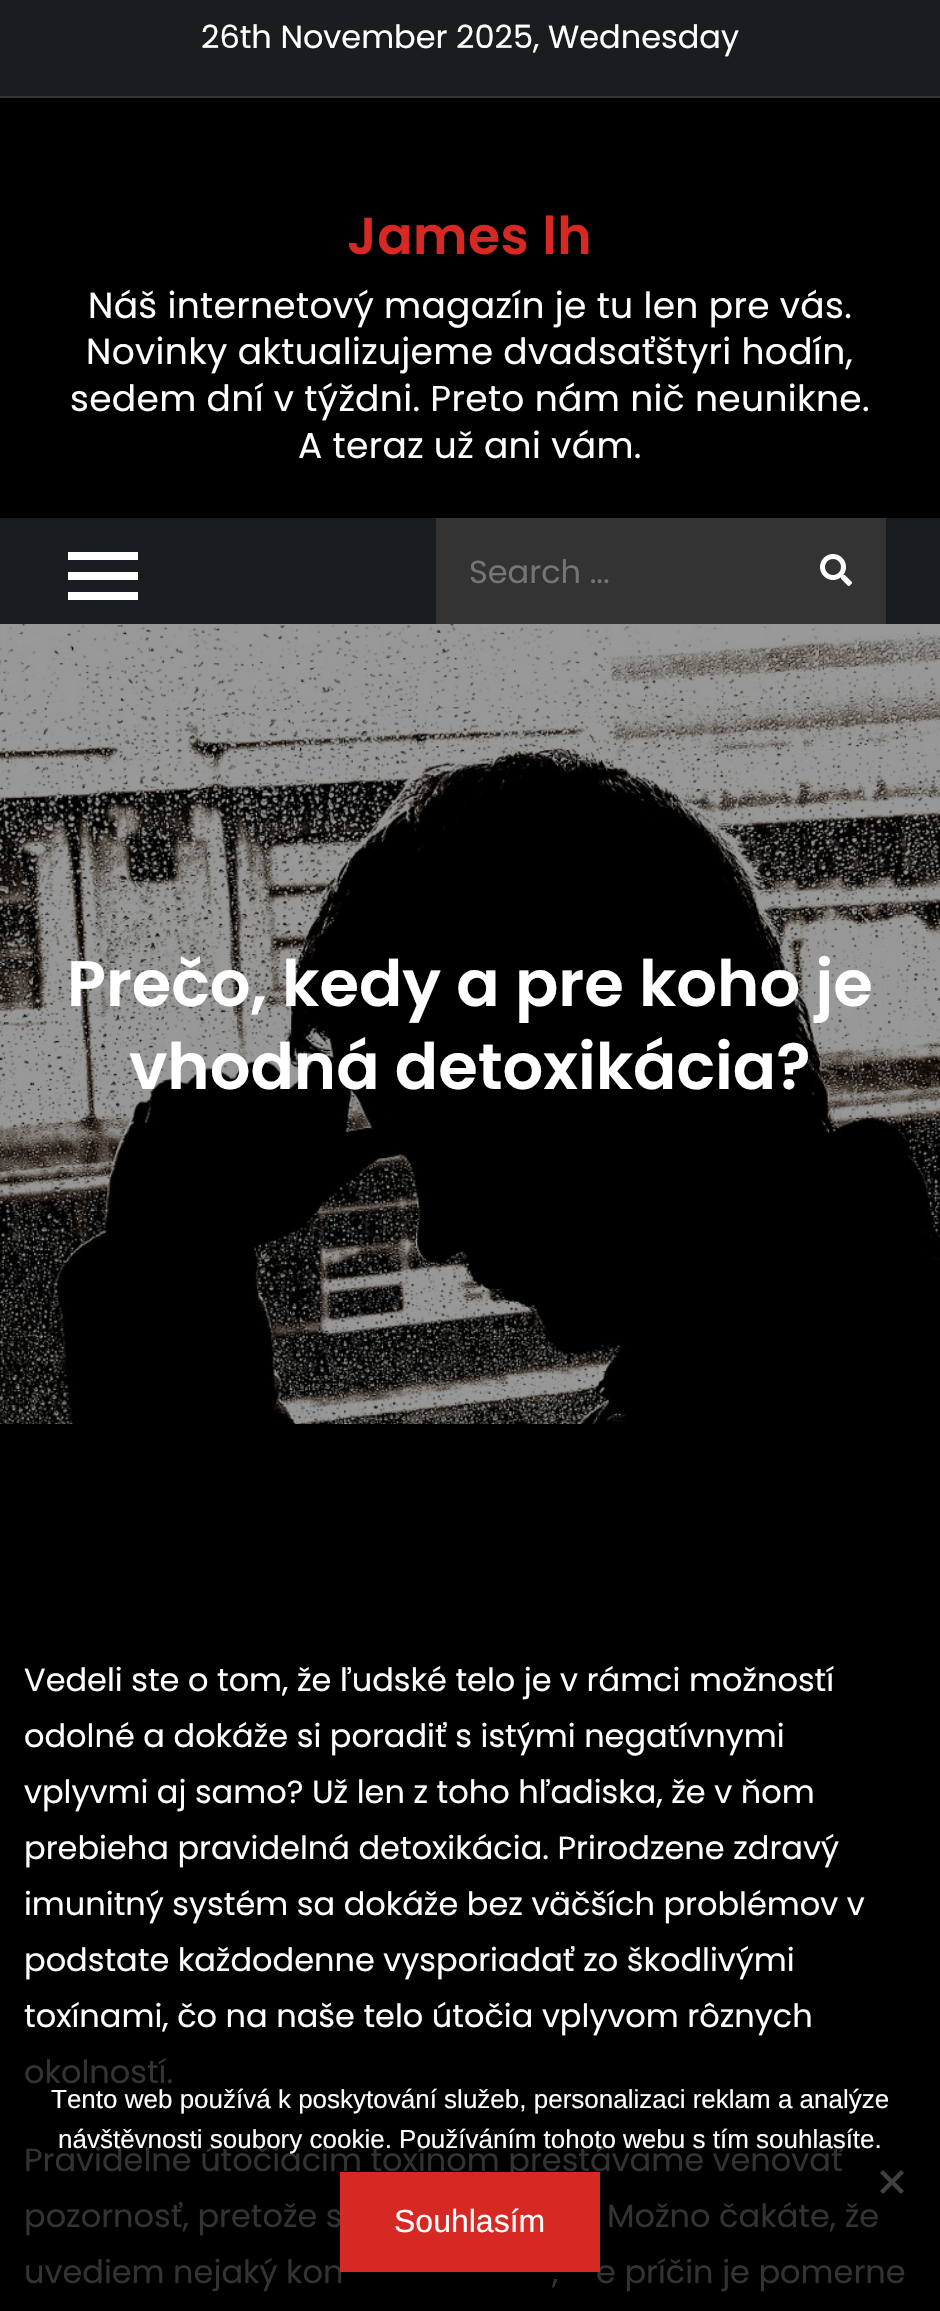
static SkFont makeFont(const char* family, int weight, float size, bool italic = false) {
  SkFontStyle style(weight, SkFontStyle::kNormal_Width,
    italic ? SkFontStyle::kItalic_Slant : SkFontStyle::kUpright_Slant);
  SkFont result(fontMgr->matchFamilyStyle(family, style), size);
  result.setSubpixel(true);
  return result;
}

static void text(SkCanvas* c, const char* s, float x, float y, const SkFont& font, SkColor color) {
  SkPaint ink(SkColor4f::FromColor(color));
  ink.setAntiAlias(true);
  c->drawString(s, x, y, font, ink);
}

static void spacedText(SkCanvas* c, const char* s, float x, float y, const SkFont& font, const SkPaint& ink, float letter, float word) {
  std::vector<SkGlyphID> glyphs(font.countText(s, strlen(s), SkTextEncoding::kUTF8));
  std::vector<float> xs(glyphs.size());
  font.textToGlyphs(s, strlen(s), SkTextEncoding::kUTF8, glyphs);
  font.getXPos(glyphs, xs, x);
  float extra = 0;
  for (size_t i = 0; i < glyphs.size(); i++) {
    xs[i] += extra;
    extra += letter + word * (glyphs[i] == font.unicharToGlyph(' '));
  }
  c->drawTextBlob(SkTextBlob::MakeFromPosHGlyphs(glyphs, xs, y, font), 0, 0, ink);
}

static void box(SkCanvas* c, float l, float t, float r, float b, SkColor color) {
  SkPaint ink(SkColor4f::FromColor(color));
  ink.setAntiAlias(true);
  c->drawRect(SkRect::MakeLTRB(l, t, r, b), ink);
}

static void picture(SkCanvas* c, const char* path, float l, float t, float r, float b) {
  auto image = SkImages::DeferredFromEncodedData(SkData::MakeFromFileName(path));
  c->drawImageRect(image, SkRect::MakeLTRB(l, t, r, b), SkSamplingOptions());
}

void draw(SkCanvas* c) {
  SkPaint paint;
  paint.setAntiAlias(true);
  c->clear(0xff000000);
  box(c, 0, 0, 940, 96, 0xff1a1d20);
  box(c, 0, 96, 940, 98, 0xff313436);
  SkFont face1 = makeFont("Poppins", 400, 32);
  text(c, "26th November 2025, Wednesday", 201, 48, face1, 0xffffffff);
  SkFont face2 = makeFont("Poppins", 600, 52);
  paint.setColor(0xffd72924);
  spacedText(c, "James lh", 347, 254, face2, paint, 0.5f, 0);
  SkFont face3 = makeFont("Poppins", 400, 36);
  paint.setColor(0xffffffff);
  spacedText(c, "Náš internetový magazín je tu len pre vás.", 88, 318, face3, paint, 0.35f, 0);
  spacedText(c, "Novinky aktualizujeme dvadsaťštyri hodín,", 86, 364, face3, paint, 0.35f, 0);
  spacedText(c, "sedem dní v týždni. Preto nám nič neunikne.", 70, 411, face3, paint, 0.35f, 0);
  spacedText(c, "A teraz už ani vám.", 298, 458, face3, paint, 0.35f, 0);
  box(c, 0, 518, 940, 624, 0xff1a1d20);
  box(c, 68, 572, 138, 580, 0xffffffff);
  box(c, 68, 552, 138, 560, 0xffffffff);
  box(c, 68, 592, 138, 600, 0xffffffff);
  box(c, 436, 518, 886, 624, 0xff333333);
  text(c, "Search ...", 469, 583, face1, 0xff757575);
  picture(c, "img_01.png", 820, 554, 852, 586);
  picture(c, "img_02.png", 0, 624, 940, 1424);
  SkFont face4 = makeFont("Poppins", 600, 64);
  text(c, "Prečo, kedy a pre koho je", 67, 1006, face4, 0xffffffff);
  text(c, "vhodná detoxikácia?", 129, 1089, face4, 0xffffffff);
  text(c, "Vedeli ste o tom, že ľudské telo je v rámci možností", 24, 1691, face1, 0xffffffff);
  text(c, "odolné a dokáže si poradiť s istými negatívnymi", 24, 1747, face1, 0xffffffff);
  text(c, "vplyvmi aj samo? Už len z toho hľadiska, že v ňom", 24, 1803, face1, 0xffffffff);
  text(c, "prebieha pravidelná detoxikácia. Prirodzene zdravý", 24, 1859, face1, 0xffffffff);
  text(c, "imunitný systém sa dokáže bez väčších problémov v", 24, 1915, face1, 0xffffffff);
  text(c, "podstate každodenne vysporiadať zo škodlivými", 24, 1971, face1, 0xffffffff);
  text(c, "toxínami, čo na naše telo útočia vplyvom rôznych", 24, 2027, face1, 0xffffffff);
  text(c, "okolností.", 24, 2083, face1, 0xff333333);
  text(c, "Pravidelne útočiacim toxínom prestávame venovať", 24, 2171, face1, 0xff333333);
  text(c, "pozornosť, pretože s", 24, 2227, face1, 0xff333333);
  text(c, "Možno čakáte, že", 607, 2227, face1, 0xff333333);
  text(c, "uvediem nejaký kon", 24, 2283, face1, 0xff333333);
  text(c, ",", 552, 2283, face1, 0xff333333);
  text(c, "e príčin je pomerne", 596, 2283, face1, 0xff333333);
  SkFont face5 = makeFont("Liberation Sans", 400, 26);
  text(c, "Tento web používá k poskytování služeb, personalizaci reklam a analýze", 51, 2108, face5, 0xffffffff);
  text(c, "návštěvnosti soubory cookie. Používáním tohoto webu s tím souhlasíte.", 58, 2148, face5, 0xffffffff);
  paint.setColor(0xff404040);
  c->drawPath(SkPathBuilder().moveTo(901, 2170).lineTo(904, 2173).lineTo(883, 2194).lineTo(880, 2191).close().detach(), paint);
  c->drawPath(SkPathBuilder().moveTo(880, 2173).lineTo(883, 2170).lineTo(904, 2191).lineTo(901, 2194).close().detach(), paint);
  box(c, 340, 2172, 600, 2272, 0xffd72924);
  SkFont face6 = makeFont("Liberation Sans", 400, 32);
  text(c, "Souhlasím", 394, 2232, face6, 0xffffffff);
}
